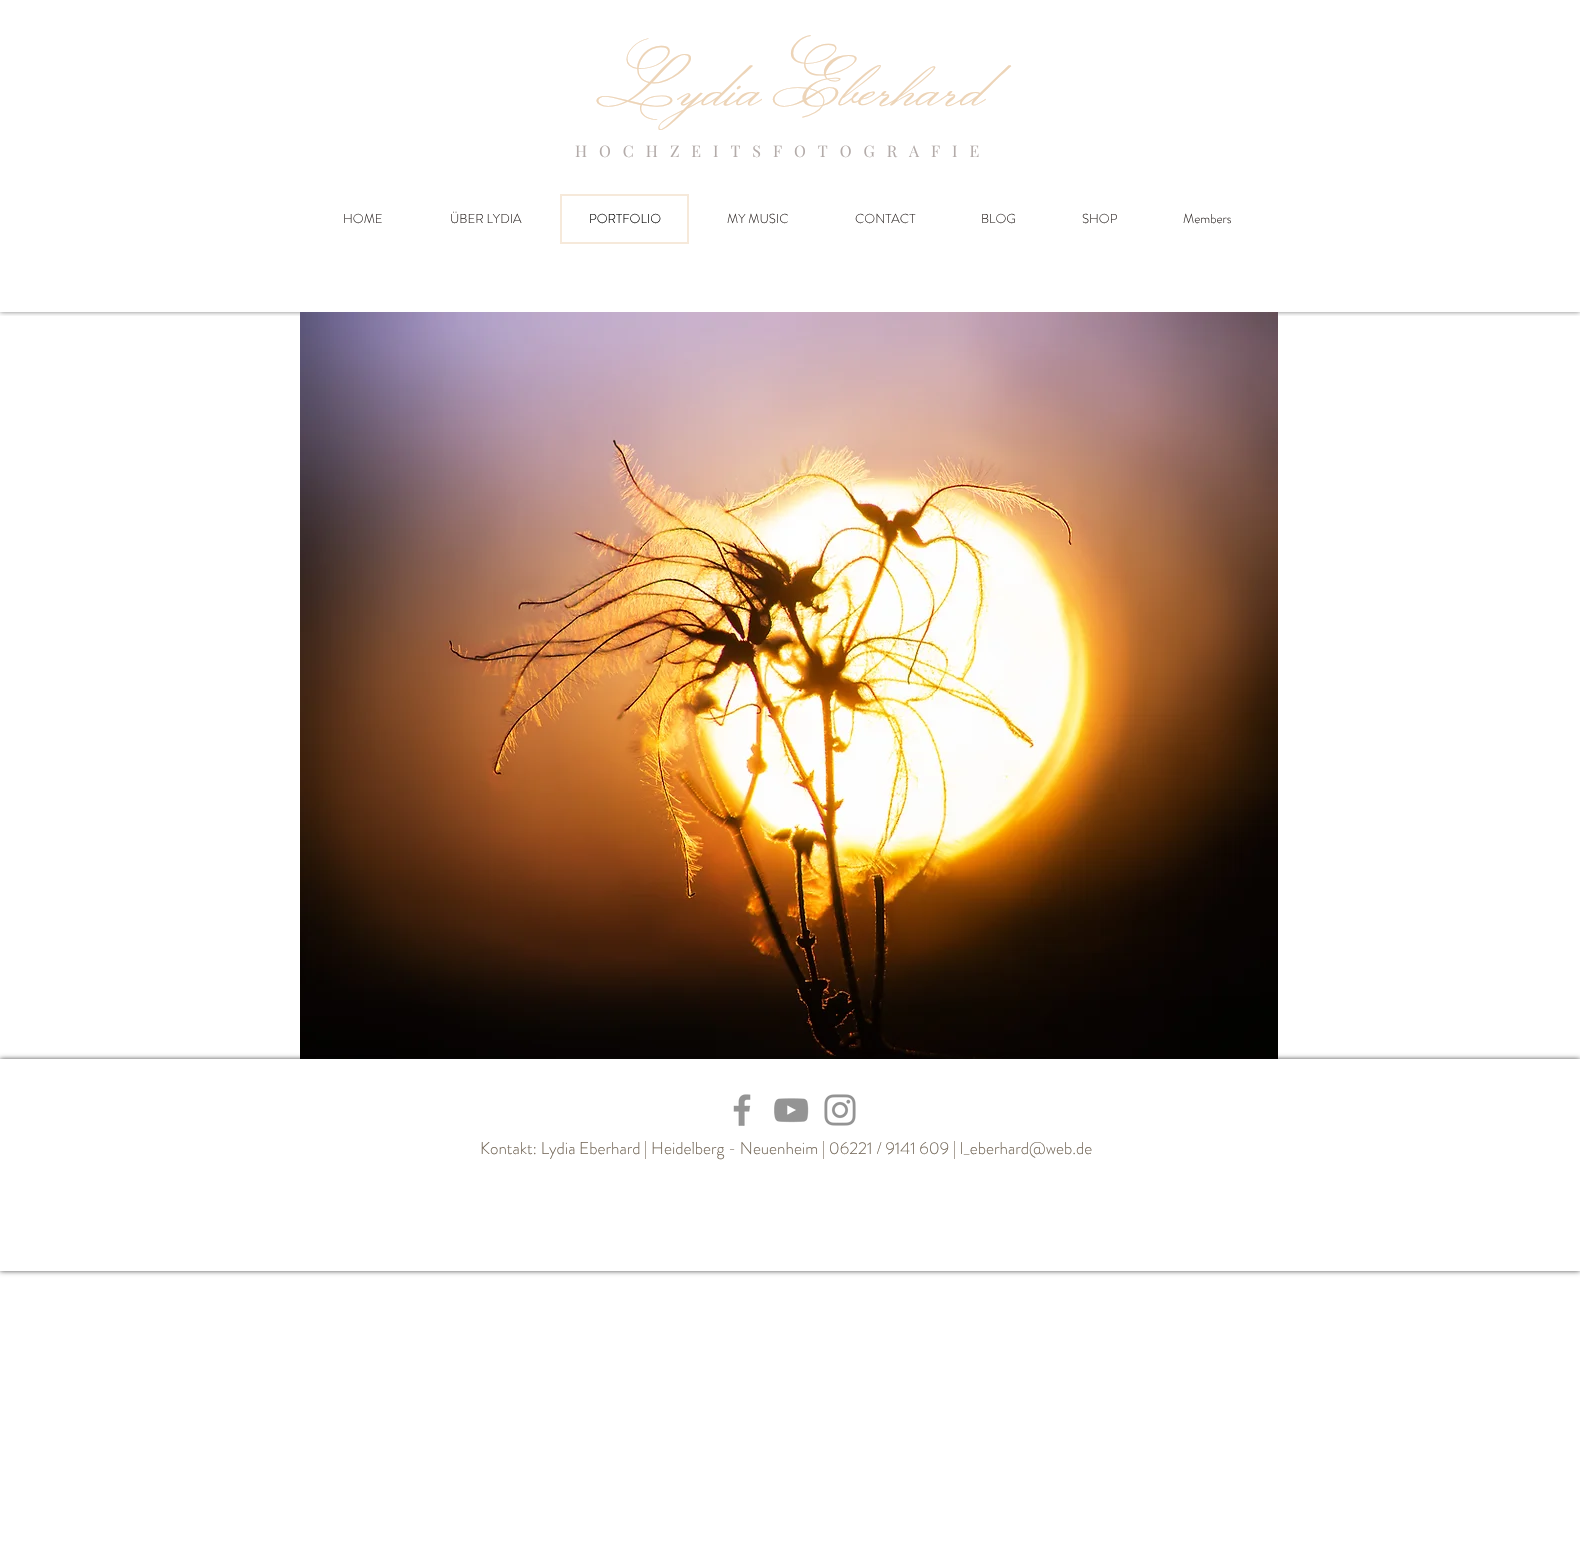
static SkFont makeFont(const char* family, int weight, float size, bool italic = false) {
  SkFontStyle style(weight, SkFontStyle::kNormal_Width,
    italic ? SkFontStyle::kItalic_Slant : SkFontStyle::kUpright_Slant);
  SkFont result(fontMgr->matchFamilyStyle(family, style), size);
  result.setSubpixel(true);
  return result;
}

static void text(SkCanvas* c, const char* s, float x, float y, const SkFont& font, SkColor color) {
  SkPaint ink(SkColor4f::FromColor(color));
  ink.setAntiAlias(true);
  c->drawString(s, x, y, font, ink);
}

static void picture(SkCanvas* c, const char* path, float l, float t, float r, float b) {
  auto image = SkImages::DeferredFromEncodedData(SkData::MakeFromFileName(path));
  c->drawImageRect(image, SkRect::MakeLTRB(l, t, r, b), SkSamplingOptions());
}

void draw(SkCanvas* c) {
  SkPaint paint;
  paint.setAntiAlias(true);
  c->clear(0xffffffff);
  c->save();
  c->clipRect(SkRect::MakeLTRB(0, 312, 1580, 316));
  paint.setColor(0x80000000);
  paint.setMaskFilter(SkMaskFilter::MakeBlur(kNormal_SkBlurStyle, 2.5f));
  c->drawRect(SkRect::MakeLTRB(0, 0, 1580, 312), paint);
  paint.setMaskFilter(nullptr);
  c->restore();
  SkFont face1 = makeFont("Monsieur La Doulaise", 400, 66);
  text(c, "Lydia Eberhard", 596, 104, face1, 0xffedd4b7);
  SkFont face2 = makeFont("Playfair Display", 400, 16);
  text(c, "H   O   C   H   Z   E   I   T   S   F   O   T   O   G   R   A   F   I   E", 575, 157, face2, 0xffb3aba9);
  SkFont face3 = makeFont("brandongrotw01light", 300, 13);
  text(c, "HOME", 343, 223, face3, 0xff332d2b);
  text(c, "ÜBER LYDIA", 450, 223, face3, 0xff332d2b);
  paint.setStyle(SkPaint::kStroke_Style);
  paint.setStrokeWidth(2);
  paint.setColor(0xfff6e9da);
  c->drawRect(SkRect::MakeLTRB(561, 195, 688, 243), paint);
  text(c, "PORTFOLIO", 589, 223, face3, 0xff000000);
  text(c, "MY MUSIC", 727, 223, face3, 0xff332d2b);
  text(c, "CONTACT", 855, 223, face3, 0xff332d2b);
  text(c, "BLOG", 981, 223, face3, 0xff332d2b);
  text(c, "SHOP", 1082, 223, face3, 0xff332d2b);
  text(c, "Members", 1183, 223, face3, 0xff332d2b);
  picture(c, "img_01.png", 300, 312, 1278, 1059);
  c->save();
  c->clipPath(SkPathBuilder(SkPathFillType::kEvenOdd).moveTo(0, 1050).lineTo(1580, 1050).lineTo(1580, 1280).lineTo(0, 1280).close().moveTo(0, 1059).lineTo(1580, 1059).lineTo(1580, 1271).lineTo(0, 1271).close().detach(), true);
  paint.setStyle(SkPaint::kFill_Style);
  paint.setColor(0xb3000000);
  paint.setMaskFilter(SkMaskFilter::MakeBlur(kNormal_SkBlurStyle, 2.5f));
  c->drawRect(SkRect::MakeLTRB(0, 1059, 1580, 1271), paint);
  paint.setMaskFilter(nullptr);
  c->restore();
  picture(c, "img_02.png", 733, 1094, 751, 1126);
  picture(c, "img_03.png", 774, 1098, 809, 1123);
  picture(c, "img_04.png", 824, 1094, 856, 1126);
  SkFont face4 = makeFont("brandongrotw01light", 300, 17);
  text(c, "Kontakt: Lydia Eberhard | Heidelberg - Neuenheim | 06221 / 9141 609 | l_eberhard@web.de", 480, 1154, face4, 0xff766a5b);
}
